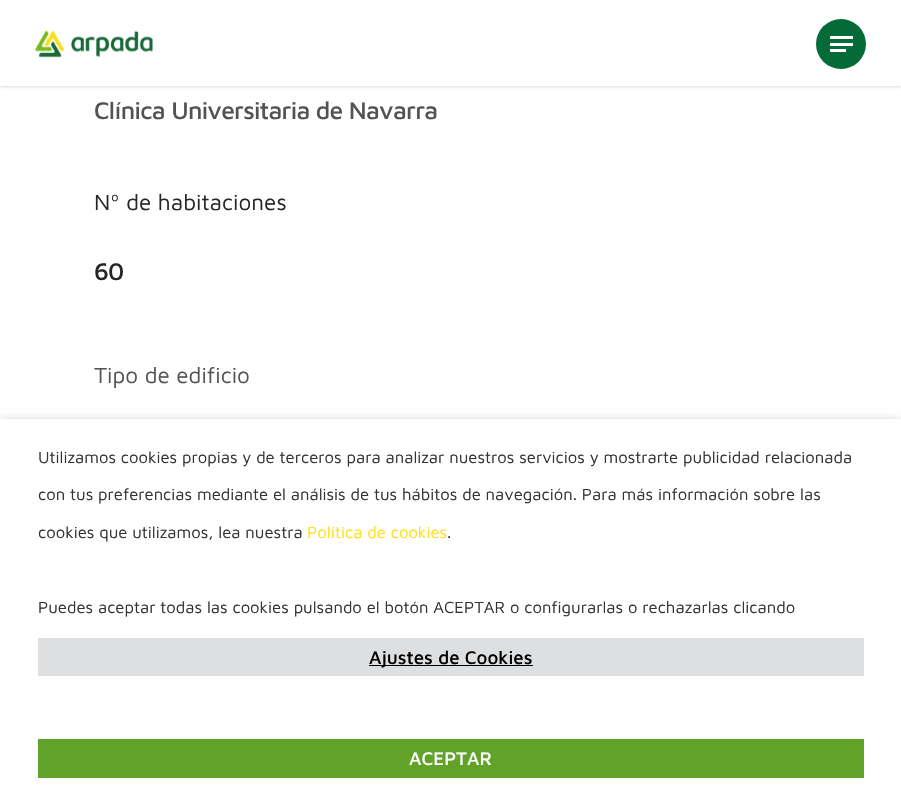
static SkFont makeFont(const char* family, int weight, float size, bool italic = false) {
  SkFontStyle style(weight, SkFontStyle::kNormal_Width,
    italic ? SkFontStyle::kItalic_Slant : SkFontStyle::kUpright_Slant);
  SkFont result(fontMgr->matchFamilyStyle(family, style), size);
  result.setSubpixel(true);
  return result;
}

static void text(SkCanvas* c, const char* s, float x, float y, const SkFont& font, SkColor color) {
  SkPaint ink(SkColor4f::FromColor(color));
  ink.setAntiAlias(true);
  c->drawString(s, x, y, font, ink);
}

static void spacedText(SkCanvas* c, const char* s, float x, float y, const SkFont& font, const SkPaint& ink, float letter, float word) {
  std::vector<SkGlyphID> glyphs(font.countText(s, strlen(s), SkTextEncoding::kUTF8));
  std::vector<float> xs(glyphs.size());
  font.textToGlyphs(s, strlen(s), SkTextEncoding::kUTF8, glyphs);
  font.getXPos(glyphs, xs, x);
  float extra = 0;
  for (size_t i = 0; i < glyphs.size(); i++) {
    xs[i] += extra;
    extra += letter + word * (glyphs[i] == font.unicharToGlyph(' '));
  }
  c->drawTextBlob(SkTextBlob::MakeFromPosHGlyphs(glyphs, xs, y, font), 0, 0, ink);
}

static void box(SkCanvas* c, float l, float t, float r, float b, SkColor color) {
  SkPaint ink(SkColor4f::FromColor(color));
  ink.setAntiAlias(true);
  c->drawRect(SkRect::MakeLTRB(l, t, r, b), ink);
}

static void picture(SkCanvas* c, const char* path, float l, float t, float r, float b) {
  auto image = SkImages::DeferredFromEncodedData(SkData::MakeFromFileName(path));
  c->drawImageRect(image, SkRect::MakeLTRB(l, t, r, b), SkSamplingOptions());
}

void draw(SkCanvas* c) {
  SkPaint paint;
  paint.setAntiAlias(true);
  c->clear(0xffffffff);
  paint.setColor(0x38000000);
  paint.setMaskFilter(SkMaskFilter::MakeBlur(kNormal_SkBlurStyle, 2));
  c->drawRect(SkRect::MakeLTRB(0, -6, 901, 86), paint);
  paint.setMaskFilter(nullptr);
  box(c, 0, 0, 901, 86, 0xffffffff);
  picture(c, "img_01.png", 35, 30, 153, 58);
  paint.setColor(0xff046a38);
  c->drawCircle(841, 44, 25, paint);
  box(c, 830, 36, 853, 39, 0xffffffff);
  box(c, 830, 49, 846, 52, 0xffffffff);
  box(c, 830, 43, 853, 46, 0xffffffff);
  SkFont face1 = makeFont("Maven Pro", 500, 24.75f);
  paint.setColor(0xff535353);
  spacedText(c, "Clínica Universitaria de Navarra", 94, 119, face1, paint, -0.75f, 0);
  SkFont face2 = makeFont("Maven Pro", 400, 22.5f);
  text(c, "Nº de habitaciones", 94, 210, face2, 0xff262626);
  paint.setColor(0xff262626);
  spacedText(c, "60", 94, 280, face1, paint, -0.75f, 0);
  text(c, "Tipo de edificio", 94, 383, face2, 0xff535353);
  paint.setColor(0x80000000);
  paint.setMaskFilter(SkMaskFilter::MakeBlur(kNormal_SkBlurStyle, 6));
  c->drawRect(SkRect::MakeLTRB(0, 425, 901, 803), paint);
  paint.setMaskFilter(nullptr);
  box(c, 0, 419, 901, 796, 0xffffffff);
  SkFont face3 = makeFont("Maven Pro", 400, 16.65f);
  text(c, "Utilizamos cookies propias y de terceros para analizar nuestros servicios y mostrarte publicidad relacionada", 38, 463, face3, 0xff333333);
  text(c, "con tus preferencias mediante el análisis de tus hábitos de navegación. Para más información sobre las", 38, 500, face3, 0xff333333);
  text(c, "cookies que utilizamos, lea nuestra", 38, 538, face3, 0xff333333);
  text(c, "Política de cookies", 307, 538, face3, 0xfffbe122);
  text(c, ".", 447, 538, face3, 0xff333333);
  text(c, "Puedes aceptar todas las cookies pulsando el botón ACEPTAR o configurarlas o rechazarlas clicando", 38, 613, face3, 0xff333333);
  box(c, 38, 638, 864, 676, 0xffdedfe0);
  box(c, 369, 665, 533, 666, 0xff000000);
  SkFont face4 = makeFont("Maven Pro", 500, 18.75f);
  text(c, "Ajustes de Cookies", 369, 664, face4, 0xff000000);
  box(c, 38, 739, 864, 778, 0xff61a229);
  text(c, "ACEPTAR", 409, 765, face4, 0xffffffff);
}
